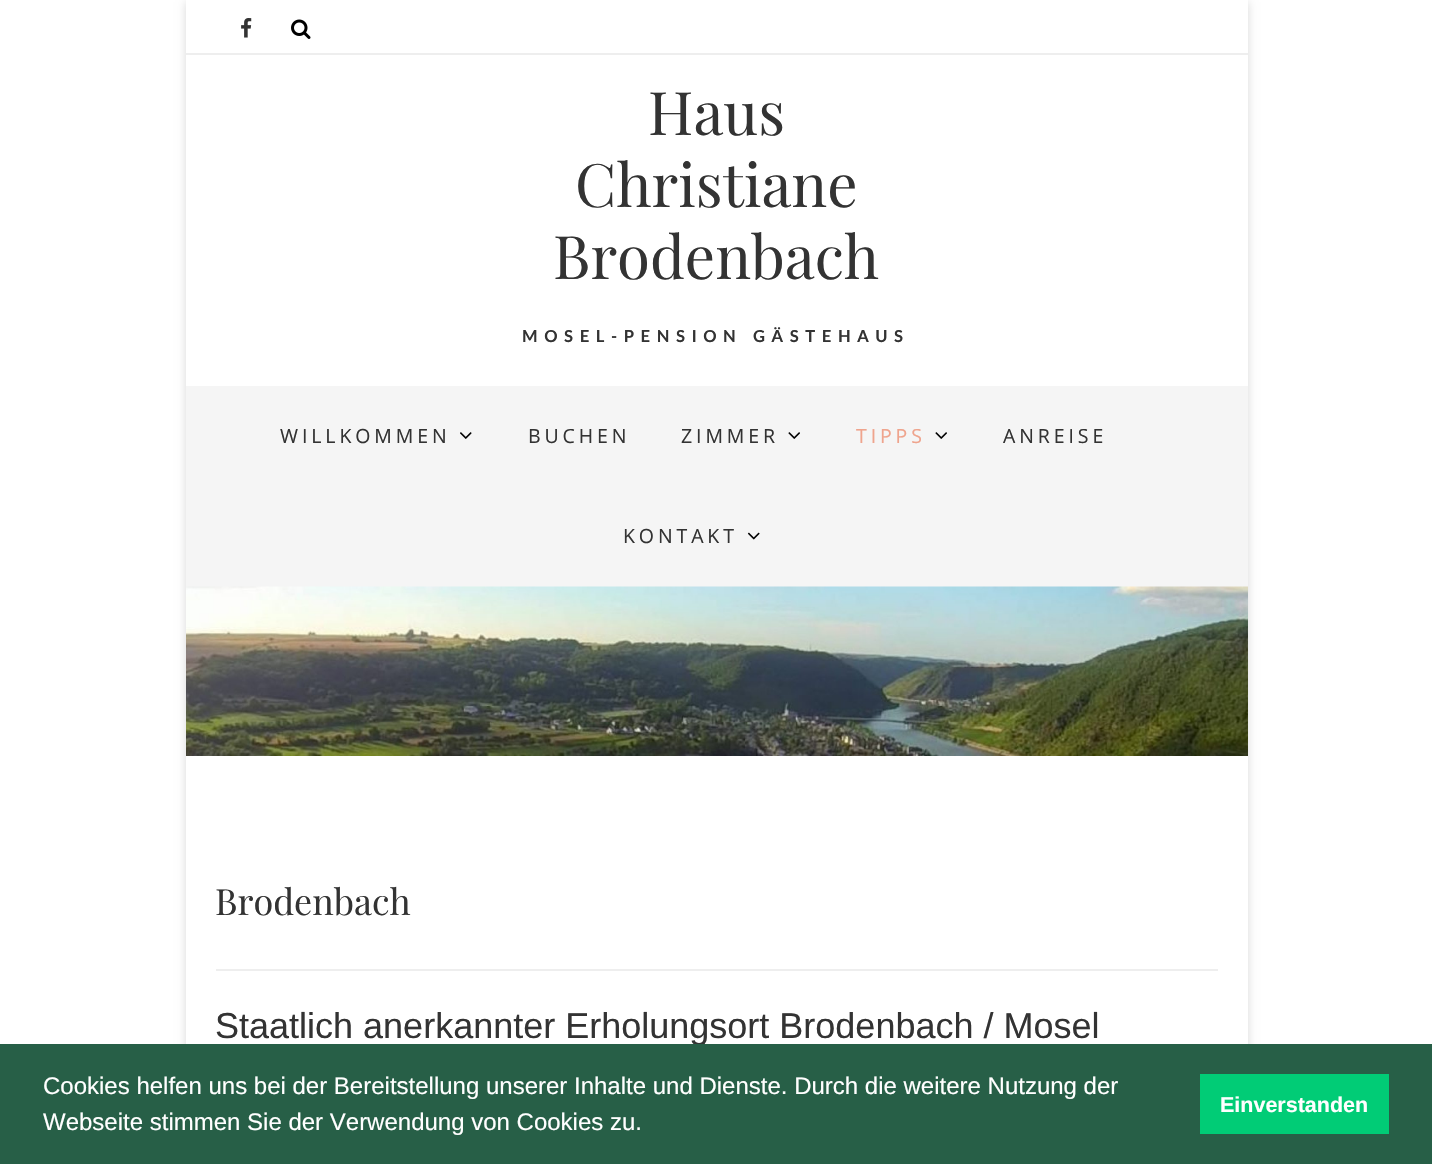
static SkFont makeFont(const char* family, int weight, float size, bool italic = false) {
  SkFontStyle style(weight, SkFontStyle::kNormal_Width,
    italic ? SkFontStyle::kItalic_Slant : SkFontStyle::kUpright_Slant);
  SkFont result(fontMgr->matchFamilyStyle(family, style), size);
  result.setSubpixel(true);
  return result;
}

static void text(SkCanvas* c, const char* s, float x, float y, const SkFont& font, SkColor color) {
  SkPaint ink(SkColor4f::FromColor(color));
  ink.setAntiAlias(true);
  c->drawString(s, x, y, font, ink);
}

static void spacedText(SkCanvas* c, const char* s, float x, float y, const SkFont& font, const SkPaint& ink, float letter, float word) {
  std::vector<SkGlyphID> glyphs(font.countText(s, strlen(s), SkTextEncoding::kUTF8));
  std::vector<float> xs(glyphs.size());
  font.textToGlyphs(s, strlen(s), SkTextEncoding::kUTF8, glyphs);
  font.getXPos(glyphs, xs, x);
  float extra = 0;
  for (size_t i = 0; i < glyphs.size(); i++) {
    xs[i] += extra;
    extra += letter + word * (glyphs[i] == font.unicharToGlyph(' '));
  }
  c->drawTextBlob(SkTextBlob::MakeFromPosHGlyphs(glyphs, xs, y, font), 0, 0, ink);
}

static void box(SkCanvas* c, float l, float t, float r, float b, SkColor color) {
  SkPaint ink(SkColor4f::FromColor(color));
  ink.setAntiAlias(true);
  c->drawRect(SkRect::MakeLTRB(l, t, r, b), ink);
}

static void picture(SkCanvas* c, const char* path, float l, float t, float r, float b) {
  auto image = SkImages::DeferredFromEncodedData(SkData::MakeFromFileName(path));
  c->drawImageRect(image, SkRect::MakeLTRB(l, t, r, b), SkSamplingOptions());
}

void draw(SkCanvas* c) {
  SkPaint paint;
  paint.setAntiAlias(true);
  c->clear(0xffffffff);
  c->save();
  c->clipPath(SkPathBuilder(SkPathFillType::kEvenOdd).moveTo(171, 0).lineTo(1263, 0).lineTo(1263, 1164).lineTo(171, 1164).close().moveTo(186, 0).lineTo(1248, 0).lineTo(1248, 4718).lineTo(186, 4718).close().detach(), true);
  paint.setColor(0x26000000);
  paint.setMaskFilter(SkMaskFilter::MakeBlur(kNormal_SkBlurStyle, 4.5f));
  c->drawRect(SkRect::MakeLTRB(186, 2, 1248, 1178), paint);
  paint.setMaskFilter(nullptr);
  c->restore();
  box(c, 186, 53, 1248, 55, 0xffeeeeee);
  picture(c, "img_01.png", 241, 18, 252, 38);
  picture(c, "img_02.png", 291, 19, 311, 39);
  SkFont face1 = makeFont("Playfair Display", 400, 60);
  text(c, "Haus", 648, 135, face1, 0xff333333);
  text(c, "Christiane", 575, 207, face1, 0xff333333);
  text(c, "Brodenbach", 553, 279, face1, 0xff333333);
  SkFont face2 = makeFont("Lato", 700, 16.5f);
  paint.setColor(0xff333333);
  spacedText(c, "MOSEL-PENSION GÄSTEHAUS", 522, 342, face2, paint, 6.6f, 0);
  box(c, 186, 386, 1248, 587, 0xfff5f5f5);
  SkFont face3 = makeFont("Open Sans", 400, 19.5f);
  spacedText(c, "WILLKOMMEN", 280, 443, face3, paint, 3.9f, 0);
  picture(c, "img_03.png", 460, 432, 472, 439);
  spacedText(c, "BUCHEN", 528, 443, face3, paint, 3.9f, 0);
  spacedText(c, "ZIMMER", 681, 443, face3, paint, 3.9f, 0);
  picture(c, "img_04.png", 788, 432, 800, 439);
  paint.setColor(0xffefa48d);
  spacedText(c, "TIPPS", 856, 443, face3, paint, 3.9f, 0);
  picture(c, "img_04.png", 935, 432, 947, 439);
  paint.setColor(0xff333333);
  spacedText(c, "ANREISE", 1003, 443, face3, paint, 3.9f, 0);
  spacedText(c, "KONTAKT", 623, 543, face3, paint, 3.9f, 0);
  picture(c, "img_05.png", 747, 532, 760, 540);
  picture(c, "img_06.png", 186, 586, 1248, 756);
  box(c, 216, 969, 1218, 971, 0xffeeeeee);
  SkFont face4 = makeFont("Playfair Display", 400, 36);
  text(c, "Brodenbach", 215, 915, face4, 0xff333333);
  SkFont face5 = makeFont("Liberation Sans", 400, 36);
  text(c, "Staatlich anerkannter Erholungsort Brodenbach / Mosel", 215, 1038, face5, 0xff333333);
  box(c, 0, 1044, 1432, 1164, 0xff275f47);
  SkFont face6 = makeFont("Liberation Sans", 400, 24);
  text(c, "Cookies helfen uns bei der Bereitstellung unserer Inhalte und Dienste. Durch die weitere Nutzung der", 43, 1094, face6, 0xffffffff);
  text(c, "Webseite stimmen Sie der Verwendung von Cookies zu.", 43, 1130, face6, 0xffffffff);
  box(c, 1200, 1074, 1389, 1134, 0xff01cc76);
  SkFont face7 = makeFont("Liberation Sans", 700, 21.5f);
  text(c, "Einverstanden", 1220, 1112, face7, 0xffffffff);
}
